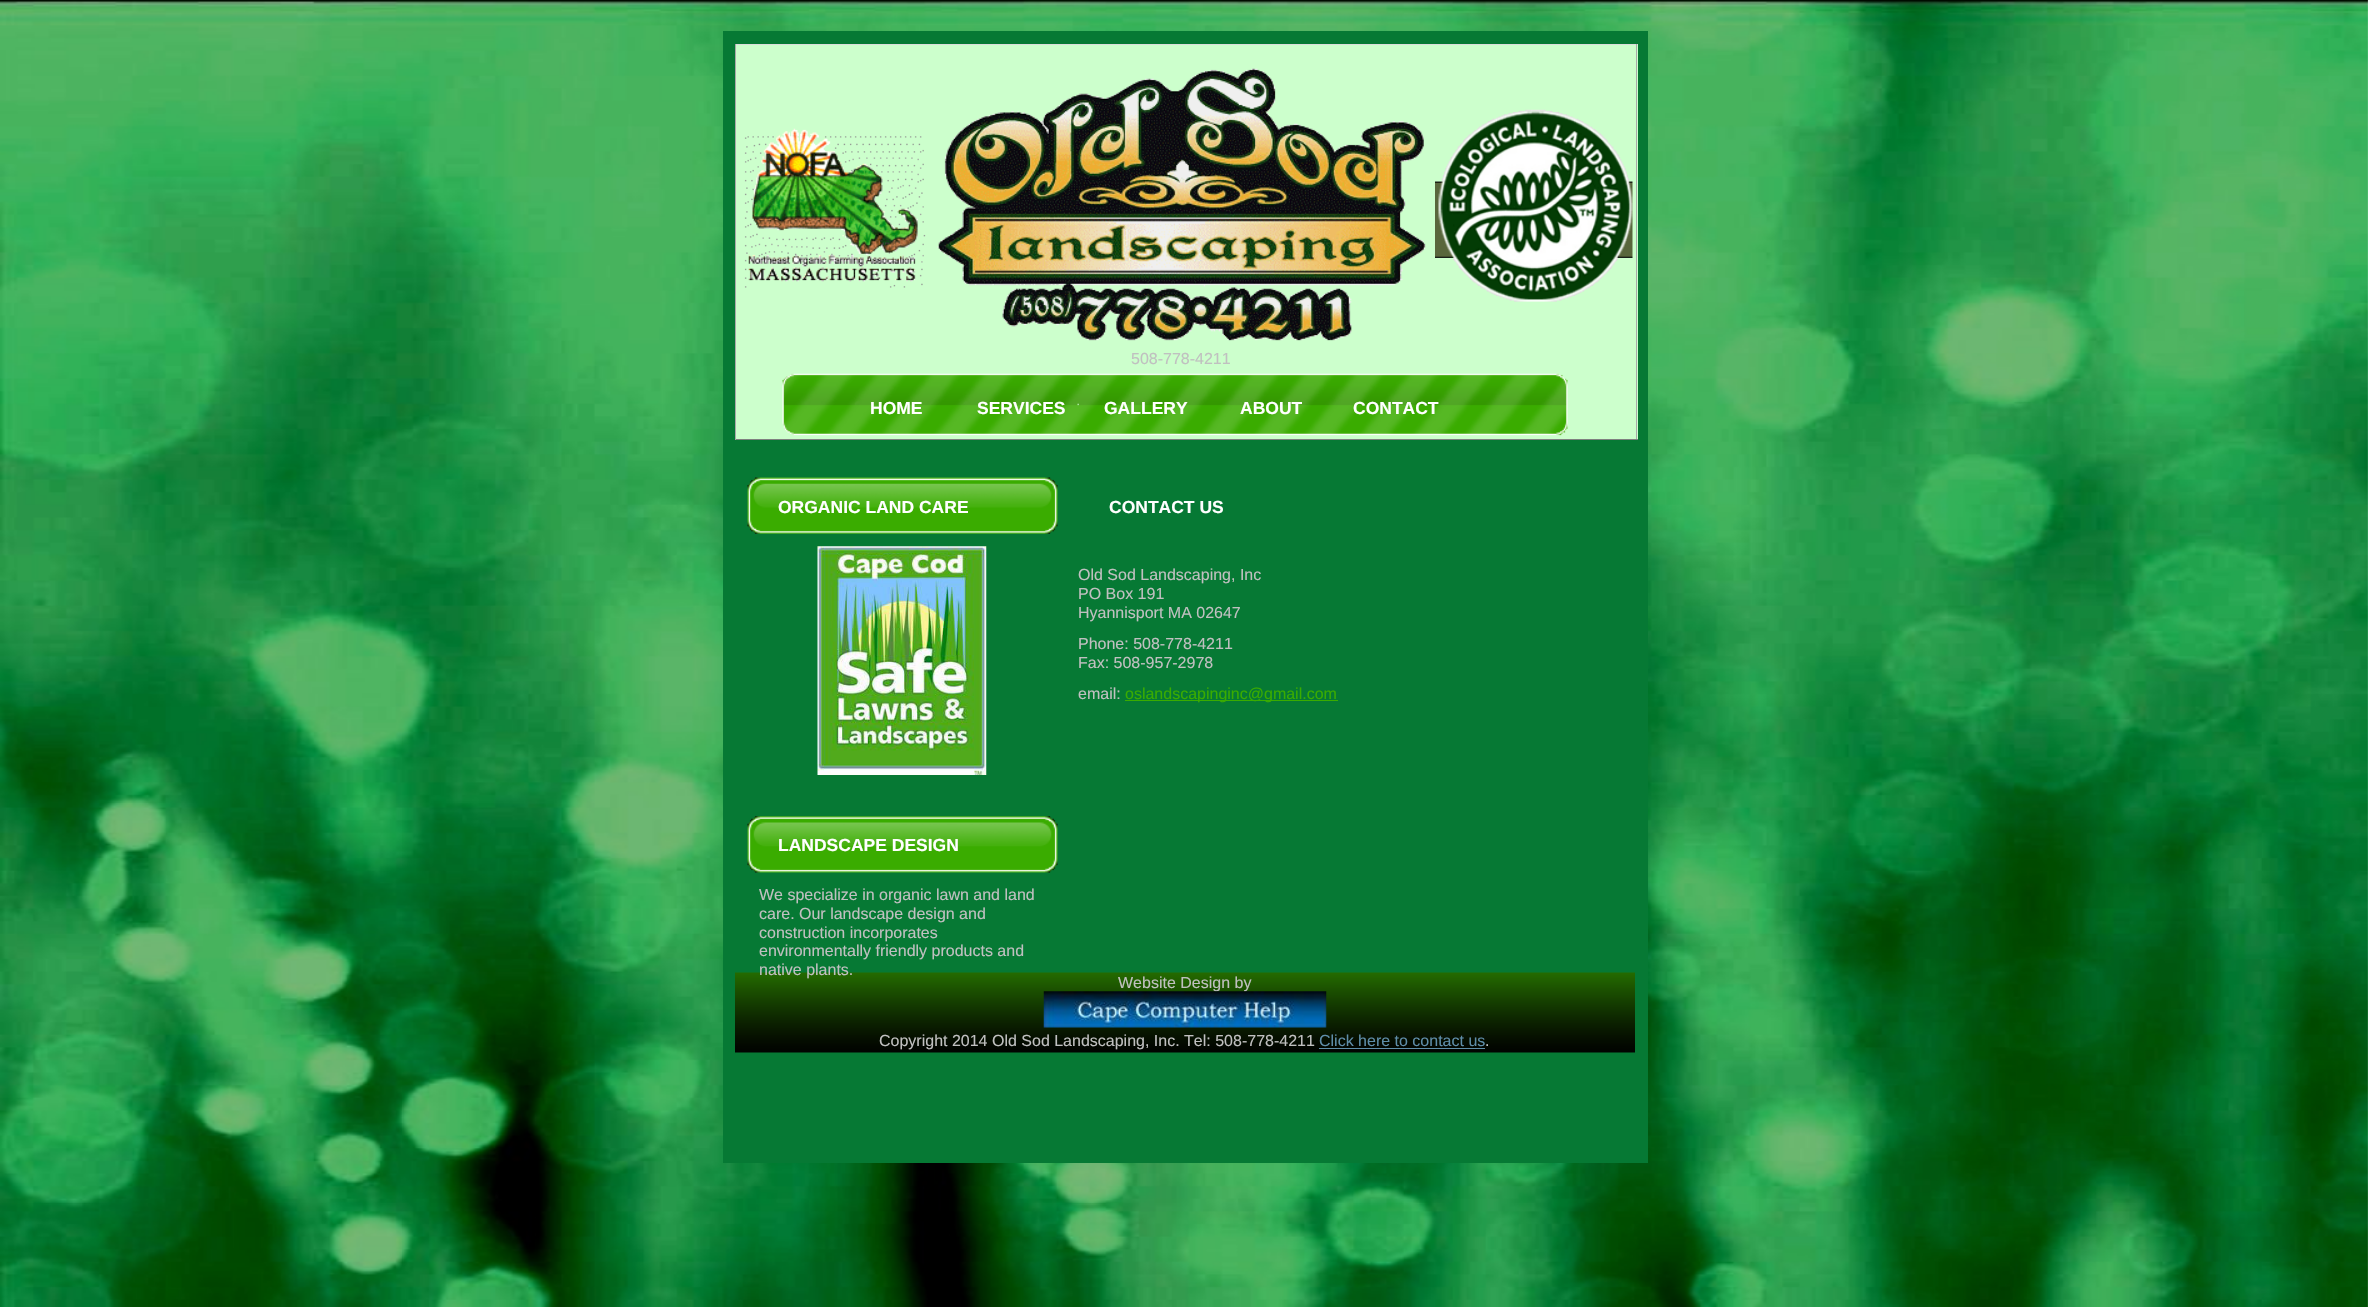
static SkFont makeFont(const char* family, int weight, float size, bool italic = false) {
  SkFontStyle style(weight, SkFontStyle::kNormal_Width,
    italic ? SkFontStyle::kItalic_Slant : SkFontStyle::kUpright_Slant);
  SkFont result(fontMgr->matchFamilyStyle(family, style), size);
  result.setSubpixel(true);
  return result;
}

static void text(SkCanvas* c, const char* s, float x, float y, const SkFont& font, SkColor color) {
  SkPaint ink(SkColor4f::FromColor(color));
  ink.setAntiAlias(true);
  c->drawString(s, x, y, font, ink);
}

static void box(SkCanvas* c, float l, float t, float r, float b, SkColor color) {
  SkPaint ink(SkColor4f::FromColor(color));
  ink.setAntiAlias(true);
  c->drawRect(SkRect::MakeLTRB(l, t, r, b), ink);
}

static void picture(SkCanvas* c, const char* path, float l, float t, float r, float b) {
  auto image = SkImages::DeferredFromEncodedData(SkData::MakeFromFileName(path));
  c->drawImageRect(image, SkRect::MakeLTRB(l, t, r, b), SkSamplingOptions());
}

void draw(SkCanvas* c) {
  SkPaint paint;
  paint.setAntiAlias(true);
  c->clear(0xffffffff);
  picture(c, "img_01.png", 0, 0, 2368, 1307);
  box(c, 723, 31, 1648, 1163, 0xff067934);
  box(c, 736, 45, 1638, 439, 0xffccffcc);
  box(c, 735, 44, 1638, 45, 0xffdcdcdc);
  box(c, 1636, 44, 1637, 440, 0xffa9a9a9);
  box(c, 735, 439, 1638, 440, 0xff808080);
  box(c, 735, 44, 736, 440, 0xffa9a9a9);
  picture(c, "img_02.png", 744, 128, 926, 288);
  picture(c, "img_03.png", 937, 68, 1426, 341);
  picture(c, "img_04.png", 1435, 109, 1633, 302);
  SkFont face1 = makeFont("Liberation Sans", 400, 16);
  text(c, "508-778-4211", 1131, 364, face1, 0xffc0c0c0);
  picture(c, "img_05.png", 782, 373, 1568, 436);
  SkFont face2 = makeFont("Liberation Sans", 700, 17.5f);
  text(c, "HOME", 870, 414, face2, 0xffffffff);
  text(c, "SERVICES", 977, 414, face2, 0xffffffff);
  text(c, "GALLERY", 1104, 414, face2, 0xffffffff);
  text(c, "ABOUT", 1240, 414, face2, 0xffffffff);
  text(c, "CONTACT", 1353, 414, face2, 0xffffffff);
  picture(c, "img_06.png", 747, 477, 1058, 534);
  text(c, "ORGANIC LAND CARE", 778, 513, face2, 0xffffffff);
  picture(c, "img_07.png", 817, 546, 987, 775);
  picture(c, "img_08.png", 747, 816, 1058, 873);
  text(c, "LANDSCAPE DESIGN", 778, 851, face2, 0xffffffff);
  text(c, "We specialize in organic lawn and land", 759, 900, face1, 0xffc0c0c0);
  text(c, "care. Our landscape design and", 759, 919, face1, 0xffc0c0c0);
  text(c, "construction incorporates", 759, 938, face1, 0xffc0c0c0);
  text(c, "environmentally friendly products and", 759, 956, face1, 0xffc0c0c0);
  picture(c, "img_09.png", 735, 972, 1635, 1053);
  text(c, "native plants.", 759, 975, face1, 0xffc0c0c0);
  text(c, "CONTACT US", 1109, 513, face2, 0xffffffff);
  text(c, "Old Sod Landscaping, Inc", 1078, 580, face1, 0xffc0c0c0);
  text(c, "PO Box 191", 1078, 599, face1, 0xffc0c0c0);
  text(c, "Hyannisport MA 02647", 1078, 618, face1, 0xffc0c0c0);
  text(c, "Phone: 508-778-4211", 1078, 649, face1, 0xffc0c0c0);
  text(c, "Fax: 508-957-2978", 1078, 668, face1, 0xffc0c0c0);
  text(c, "email:", 1078, 699, face1, 0xffc0c0c0);
  box(c, 1125, 700, 1338, 701, 0xff3aac00);
  text(c, "oslandscapinginc@gmail.com", 1125, 699, face1, 0xff3aac00);
  text(c, "Website Design by", 1118, 988, face1, 0xffc0c0c0);
  picture(c, "img_10.png", 1043, 991, 1327, 1028);
  text(c, "Copyright 2014 Old Sod Landscaping, Inc. Tel: 508-778-4211", 879, 1046, face1, 0xffc0c0c0);
  text(c, "Click here to contact us", 1319, 1046, face1, 0xff5f8ea9);
  text(c, ".", 1485, 1046, face1, 0xffc0c0c0);
  box(c, 1319, 1048, 1485, 1049, 0xff5f8ea9);
}
